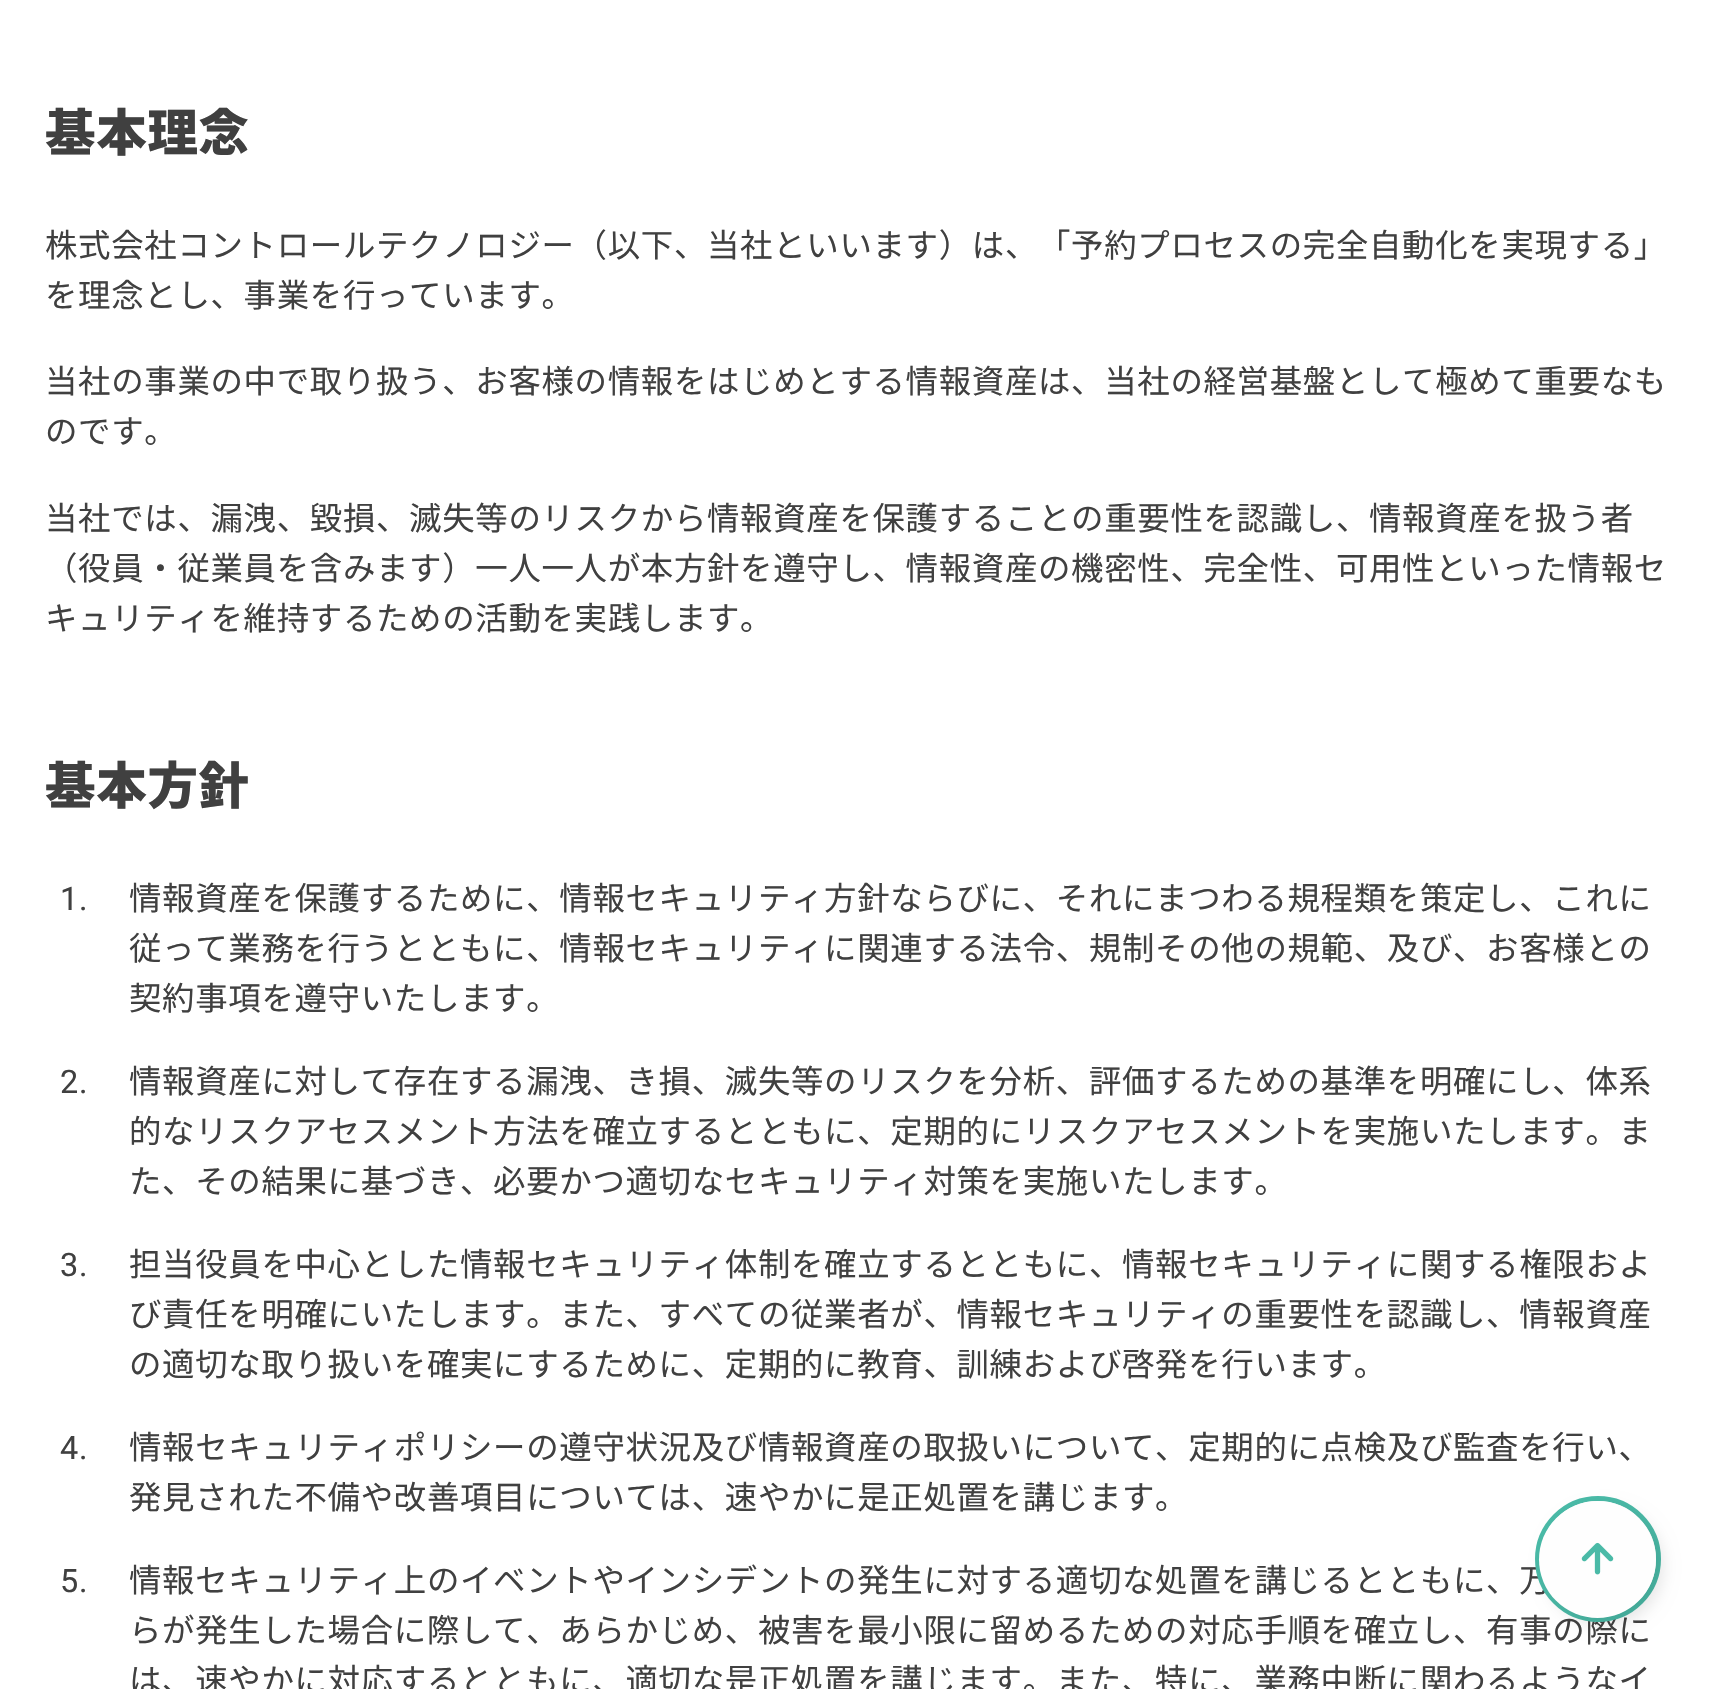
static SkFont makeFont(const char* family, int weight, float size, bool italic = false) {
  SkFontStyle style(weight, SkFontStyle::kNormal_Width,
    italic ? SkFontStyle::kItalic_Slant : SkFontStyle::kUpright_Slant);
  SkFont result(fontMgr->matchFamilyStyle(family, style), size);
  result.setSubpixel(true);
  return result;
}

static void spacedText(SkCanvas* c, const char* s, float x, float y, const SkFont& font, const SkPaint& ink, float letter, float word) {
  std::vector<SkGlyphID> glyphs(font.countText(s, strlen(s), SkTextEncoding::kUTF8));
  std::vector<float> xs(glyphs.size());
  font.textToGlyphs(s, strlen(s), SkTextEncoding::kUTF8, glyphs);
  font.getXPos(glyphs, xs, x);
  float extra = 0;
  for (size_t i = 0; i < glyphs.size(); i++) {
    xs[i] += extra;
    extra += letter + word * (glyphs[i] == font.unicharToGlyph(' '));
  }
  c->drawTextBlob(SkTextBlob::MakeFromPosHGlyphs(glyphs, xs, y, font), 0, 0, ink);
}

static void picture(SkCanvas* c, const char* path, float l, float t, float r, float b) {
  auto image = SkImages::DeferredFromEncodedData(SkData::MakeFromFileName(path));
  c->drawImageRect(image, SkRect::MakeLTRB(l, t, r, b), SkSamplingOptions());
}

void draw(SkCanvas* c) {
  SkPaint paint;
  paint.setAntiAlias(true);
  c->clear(0xffffffff);
  SkFont face1 = makeFont("Noto Sans JP", 900, 50.5f);
  paint.setColor(0xff404040);
  spacedText(c, "基本理念", 45, 151, face1, paint, 0.7f, 0);
  SkFont face2 = makeFont("Noto Sans JP", 400, 32.4f);
  spacedText(c, "株式会社コントロールテクノロジー（以下、当社といいます）は、「予約プロセスの完全自動化を実現する」", 45, 257, face2, paint, 0.7f, 0);
  spacedText(c, "を理念とし、事業を行っています。", 45, 307, face2, paint, 0.7f, 0);
  spacedText(c, "当社の事業の中で取り扱う、お客様の情報をはじめとする情報資産は、当社の経営基盤として極めて重要なも", 45, 393, face2, paint, 0.7f, 0);
  spacedText(c, "のです。", 45, 443, face2, paint, 0.7f, 0);
  spacedText(c, "当社では、漏洩、毀損、滅失等のリスクから情報資産を保護することの重要性を認識し、情報資産を扱う者", 45, 530, face2, paint, 0.7f, 0);
  spacedText(c, "（役員・従業員を含みます）一人一人が本方針を遵守し、情報資産の機密性、完全性、可用性といった情報セ", 45, 580, face2, paint, 0.7f, 0);
  spacedText(c, "キュリティを維持するための活動を実践します。", 45, 630, face2, paint, 0.7f, 0);
  spacedText(c, "基本方針", 45, 804, face1, paint, 0.7f, 0);
  SkFont face3 = makeFont("Roboto", 400, 32.4f);
  spacedText(c, "1.", 60, 910, face3, paint, 0.7f, 0);
  spacedText(c, "情報資産を保護するために、情報セキュリティ方針ならびに、それにまつわる規程類を策定し、これに", 129, 910, face2, paint, 0.7f, 0);
  spacedText(c, "従って業務を行うとともに、情報セキュリティに関連する法令、規制その他の規範、及び、お客様との", 129, 960, face2, paint, 0.7f, 0);
  spacedText(c, "契約事項を遵守いたします。", 129, 1010, face2, paint, 0.7f, 0);
  spacedText(c, "2.", 60, 1093, face3, paint, 0.7f, 0);
  spacedText(c, "情報資産に対して存在する漏洩、き損、滅失等のリスクを分析、評価するための基準を明確にし、体系", 129, 1093, face2, paint, 0.7f, 0);
  spacedText(c, "的なリスクアセスメント方法を確立するとともに、定期的にリスクアセスメントを実施いたします。ま", 129, 1143, face2, paint, 0.7f, 0);
  spacedText(c, "た、その結果に基づき、必要かつ適切なセキュリティ対策を実施いたします。", 129, 1193, face2, paint, 0.7f, 0);
  spacedText(c, "3.", 60, 1276, face3, paint, 0.7f, 0);
  spacedText(c, "担当役員を中心とした情報セキュリティ体制を確立するとともに、情報セキュリティに関する権限およ", 129, 1276, face2, paint, 0.7f, 0);
  spacedText(c, "び責任を明確にいたします。また、すべての従業者が、情報セキュリティの重要性を認識し、情報資産", 129, 1326, face2, paint, 0.7f, 0);
  spacedText(c, "の適切な取り扱いを確実にするために、定期的に教育、訓練および啓発を行います。", 129, 1376, face2, paint, 0.7f, 0);
  spacedText(c, "4.", 60, 1459, face3, paint, 0.7f, 0);
  spacedText(c, "情報セキュリティポリシーの遵守状況及び情報資産の取扱いについて、定期的に点検及び監査を行い、", 129, 1459, face2, paint, 0.7f, 0);
  spacedText(c, "発見された不備や改善項目については、速やかに是正処置を講じます。", 129, 1509, face2, paint, 0.7f, 0);
  spacedText(c, "5.", 60, 1592, face3, paint, 0.7f, 0);
  spacedText(c, "情報セキュリティ上のイベントやインシデントの発生に対する適切な処置を講じるとともに、万", 129, 1592, face2, paint, 0.7f, 0);
  spacedText(c, "らが発生した場合に際して、あらかじめ、被害を最小限に留めるための対応手順を確立し、有事の際に", 129, 1642, face2, paint, 0.7f, 0);
  spacedText(c, "は、速やかに対応するとともに、適切な是正処置を講じます。また、特に、業務中断に関わるようなイ", 129, 1692, face2, paint, 0.7f, 0);
  paint.setStyle(SkPaint::kStroke_Style);
  paint.setStrokeWidth(5);
  paint.setColor(0xff4abaa7);
  c->drawCircle(1598, 1559, 60.5f, paint);
  paint.setStyle(SkPaint::kFill_Style);
  paint.setColor(0x1a000000);
  paint.setMaskFilter(SkMaskFilter::MakeBlur(kNormal_SkBlurStyle, 8));
  c->drawRoundRect(SkRect::MakeLTRB(1546, 1508, 1663, 1625), 58.5f, 58.5f, paint);
  paint.setMaskFilter(nullptr);
  paint.setColor(0xfffefefe);
  c->drawCircle(1597.5f, 1559.5f, 58.5f, paint);
  picture(c, "img_01.png", 1581, 1542, 1614, 1575);
}
